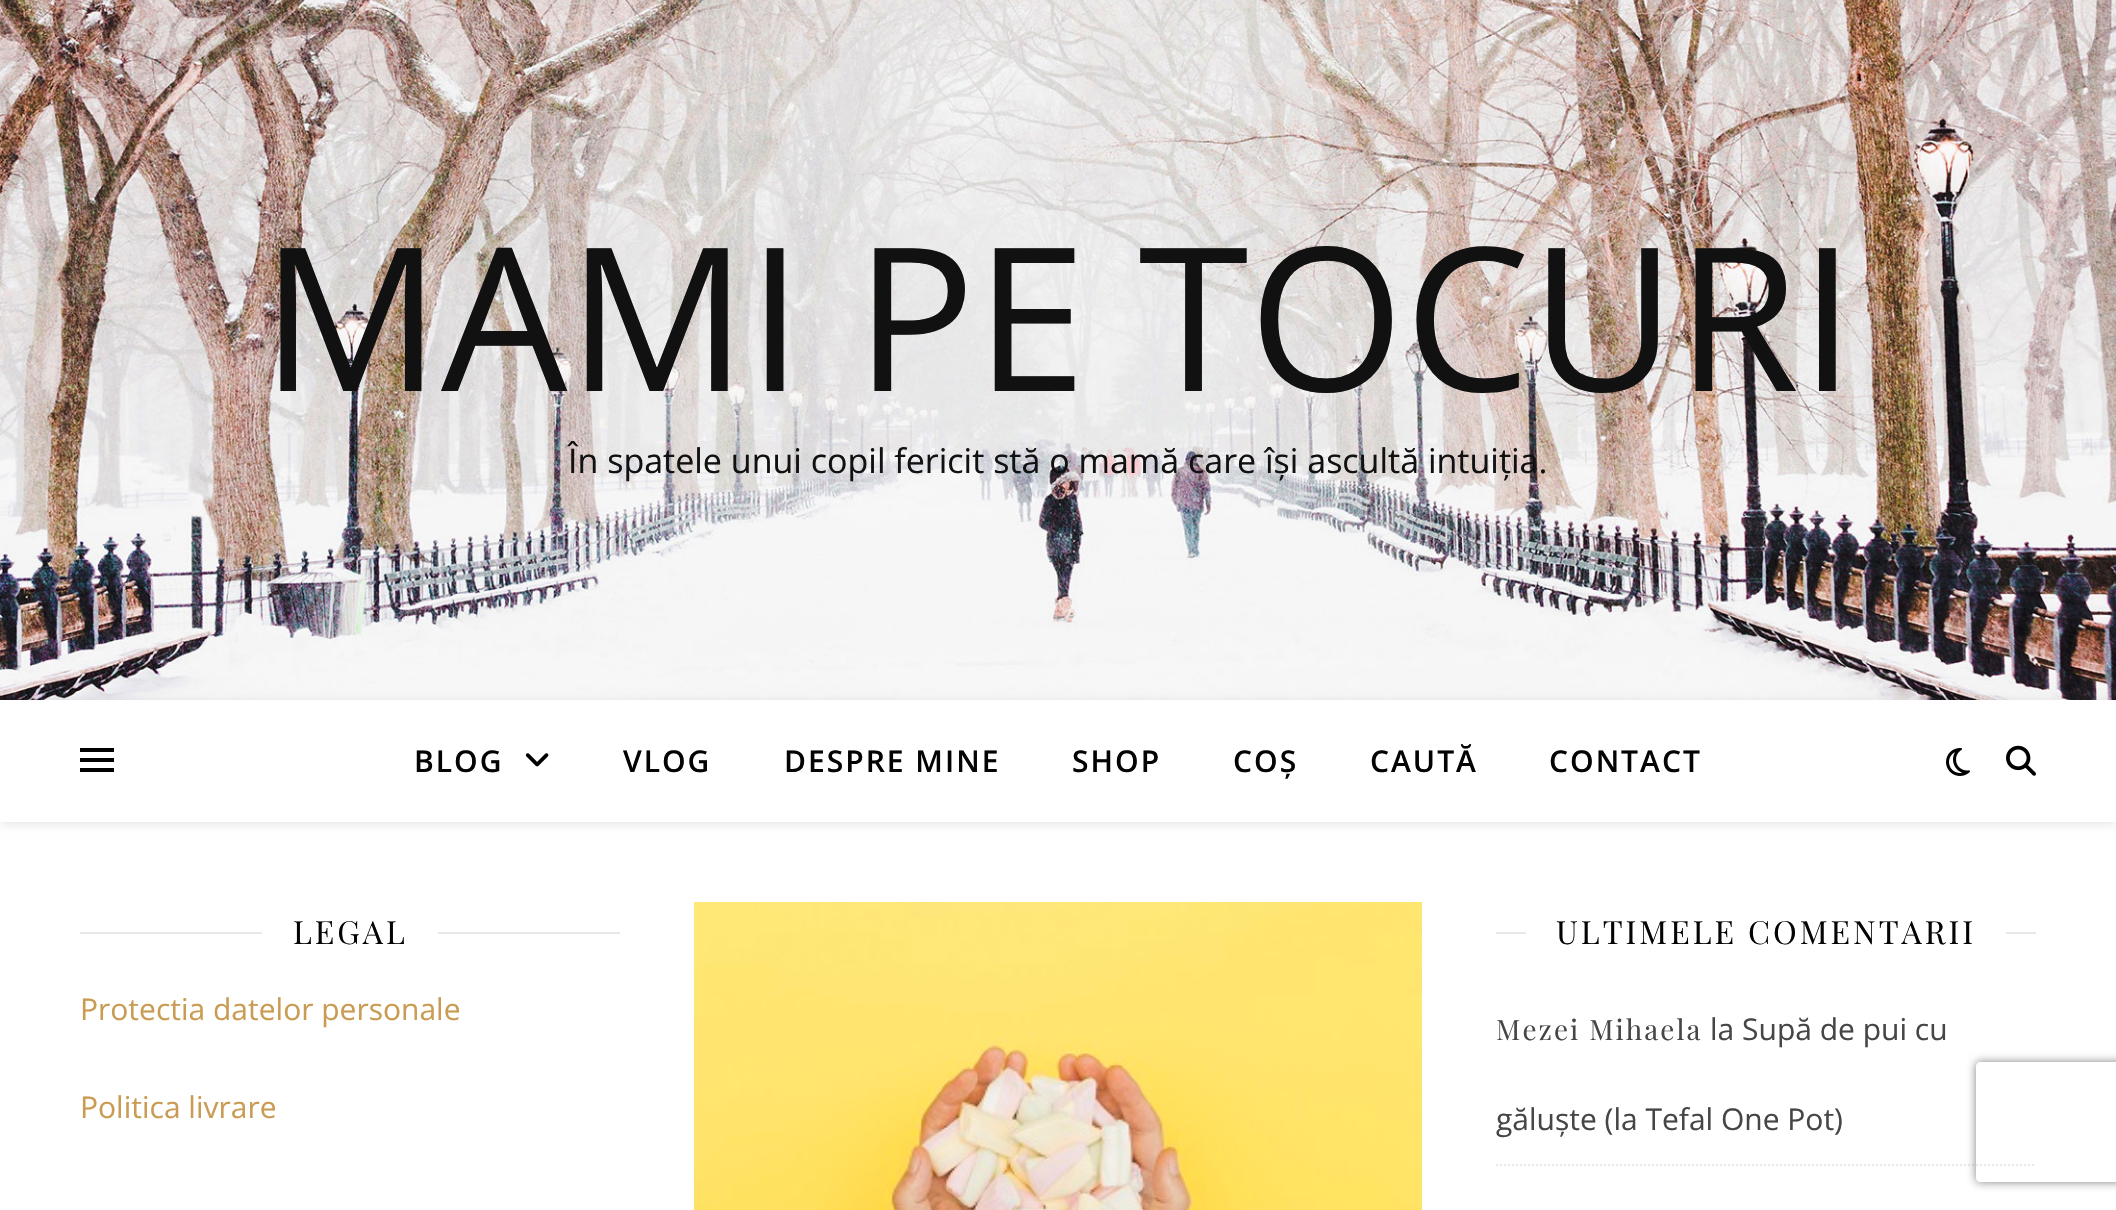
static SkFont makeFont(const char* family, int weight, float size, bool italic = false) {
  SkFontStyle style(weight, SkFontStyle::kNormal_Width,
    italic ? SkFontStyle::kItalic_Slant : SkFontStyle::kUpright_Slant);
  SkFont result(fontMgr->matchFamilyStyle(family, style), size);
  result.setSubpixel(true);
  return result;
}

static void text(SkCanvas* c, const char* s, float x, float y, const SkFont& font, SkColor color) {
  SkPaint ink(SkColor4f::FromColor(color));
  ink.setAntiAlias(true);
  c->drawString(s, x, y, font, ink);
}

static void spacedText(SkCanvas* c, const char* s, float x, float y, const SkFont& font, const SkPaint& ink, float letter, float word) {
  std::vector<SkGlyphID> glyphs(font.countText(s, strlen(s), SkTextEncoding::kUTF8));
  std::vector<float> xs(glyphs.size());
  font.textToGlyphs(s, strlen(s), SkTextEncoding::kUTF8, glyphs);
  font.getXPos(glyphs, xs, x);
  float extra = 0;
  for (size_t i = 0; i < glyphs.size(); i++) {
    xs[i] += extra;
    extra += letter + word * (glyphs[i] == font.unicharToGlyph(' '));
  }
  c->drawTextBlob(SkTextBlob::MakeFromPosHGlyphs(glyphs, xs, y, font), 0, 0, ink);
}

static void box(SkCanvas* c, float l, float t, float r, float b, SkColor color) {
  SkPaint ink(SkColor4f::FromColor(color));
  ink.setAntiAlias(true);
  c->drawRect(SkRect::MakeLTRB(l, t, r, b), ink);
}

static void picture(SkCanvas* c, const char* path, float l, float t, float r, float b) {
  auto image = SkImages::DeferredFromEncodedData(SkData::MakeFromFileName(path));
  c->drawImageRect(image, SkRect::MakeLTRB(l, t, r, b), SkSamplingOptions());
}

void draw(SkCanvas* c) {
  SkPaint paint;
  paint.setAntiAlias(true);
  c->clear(0xffffffff);
  picture(c, "img_01.png", 0, 0, 2116, 700);
  SkFont face1 = makeFont("Open Sans", 400, 200);
  text(c, "MAMI PE TOCURI", 261, 391, face1, 0xff111111);
  SkFont face2 = makeFont("Open Sans", 400, 34);
  text(c, "În spatele unui copil fericit stă o mamă care își ascultă intuiția.", 568, 473, face2, 0xff111111);
  c->save();
  c->clipPath(SkPathBuilder(SkPathFillType::kEvenOdd).moveTo(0, 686).lineTo(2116, 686).lineTo(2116, 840).lineTo(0, 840).close().moveTo(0, 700).lineTo(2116, 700).lineTo(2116, 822).lineTo(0, 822).close().detach(), true);
  paint.setColor(0x1a000000);
  paint.setMaskFilter(SkMaskFilter::MakeBlur(kNormal_SkBlurStyle, 5));
  c->drawRect(SkRect::MakeLTRB(0, 702, 2116, 824), paint);
  paint.setMaskFilter(nullptr);
  c->restore();
  box(c, 80, 748, 114, 752, 0xff000000);
  box(c, 80, 758, 114, 762, 0xff000000);
  box(c, 80, 768, 114, 772, 0xff000000);
  SkFont face3 = makeFont("Open Sans", 600, 30);
  paint.setColor(0xff030303);
  spacedText(c, "BLOG", 414, 772, face3, paint, 2, 0);
  picture(c, "img_02.png", 525, 753, 549, 767);
  spacedText(c, "VLOG", 623, 772, face3, paint, 2, 0);
  spacedText(c, "DESPRE MINE", 784, 772, face3, paint, 2, 0);
  spacedText(c, "SHOP", 1072, 772, face3, paint, 2, 0);
  spacedText(c, "COȘ", 1233, 772, face3, paint, 2, 0);
  spacedText(c, "CAUTĂ", 1370, 772, face3, paint, 2, 0);
  spacedText(c, "CONTACT", 1549, 772, face3, paint, 2, 0);
  picture(c, "img_03.png", 1946, 748, 1970, 776);
  picture(c, "img_04.png", 2006, 745, 2036, 776);
  box(c, 80, 932, 262, 934, 0xffe8e8e8);
  SkFont face4 = makeFont("Playfair Display", 400, 32);
  spacedText(c, "LEGAL", 293, 944, face4, paint, 3, 0);
  box(c, 438, 932, 620, 934, 0xffe8e8e8);
  SkFont face5 = makeFont("Open Sans", 400, 30);
  text(c, "Protectia datelor personale", 80, 1020, face5, 0xffca9b52);
  text(c, "Politica livrare", 80, 1118, face5, 0xffca9b52);
  picture(c, "img_05.png", 694, 902, 1422, 1210);
  box(c, 1496, 932, 1526, 934, 0xffe8e8e8);
  spacedText(c, "ULTIMELE COMENTARII", 1556, 944, face4, paint, 3, 0);
  box(c, 2006, 932, 2036, 934, 0xffe8e8e8);
  paint.setStyle(SkPaint::kStroke_Style);
  paint.setStrokeWidth(2);
  paint.setColor(0xffe8e8e8);
  paint.setPathEffect(SkDashPathEffect::Make({{2, 2}}, 0));
  c->drawPath(SkPathBuilder().moveTo(1496, 1165).lineTo(2036, 1165).detach(), paint);
  paint.setPathEffect(nullptr);
  SkFont face6 = makeFont("Playfair Display", 400, 28);
  paint.setStyle(SkPaint::kFill_Style);
  paint.setColor(0xff464646);
  spacedText(c, "Mezei Mihaela", 1496, 1040, face6, paint, 2, 0);
  text(c, "la Supă de pui cu", 1710, 1040, face5, 0xff464646);
  text(c, "găluște (la Tefal One Pot)", 1496, 1130, face5, 0xff464646);
  c->save();
  c->clipPath(SkPathBuilder(SkPathFillType::kEvenOdd).moveTo(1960, 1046).lineTo(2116, 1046).lineTo(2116, 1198).lineTo(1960, 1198).close().moveTo(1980, 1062).lineTo(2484, 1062).cubicTo(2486, 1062, 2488, 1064, 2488, 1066).lineTo(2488, 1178).cubicTo(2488, 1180, 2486, 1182, 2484, 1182).lineTo(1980, 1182).cubicTo(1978, 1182, 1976, 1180, 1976, 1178).lineTo(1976, 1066).cubicTo(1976, 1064, 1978, 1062, 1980, 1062).close().detach(), true);
  paint.setColor(0xff808080);
  paint.setMaskFilter(SkMaskFilter::MakeBlur(kNormal_SkBlurStyle, 5));
  c->drawRoundRect(SkRect::MakeLTRB(1976, 1062, 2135, 1182), 4, 4, paint);
  paint.setMaskFilter(nullptr);
  c->restore();
}
